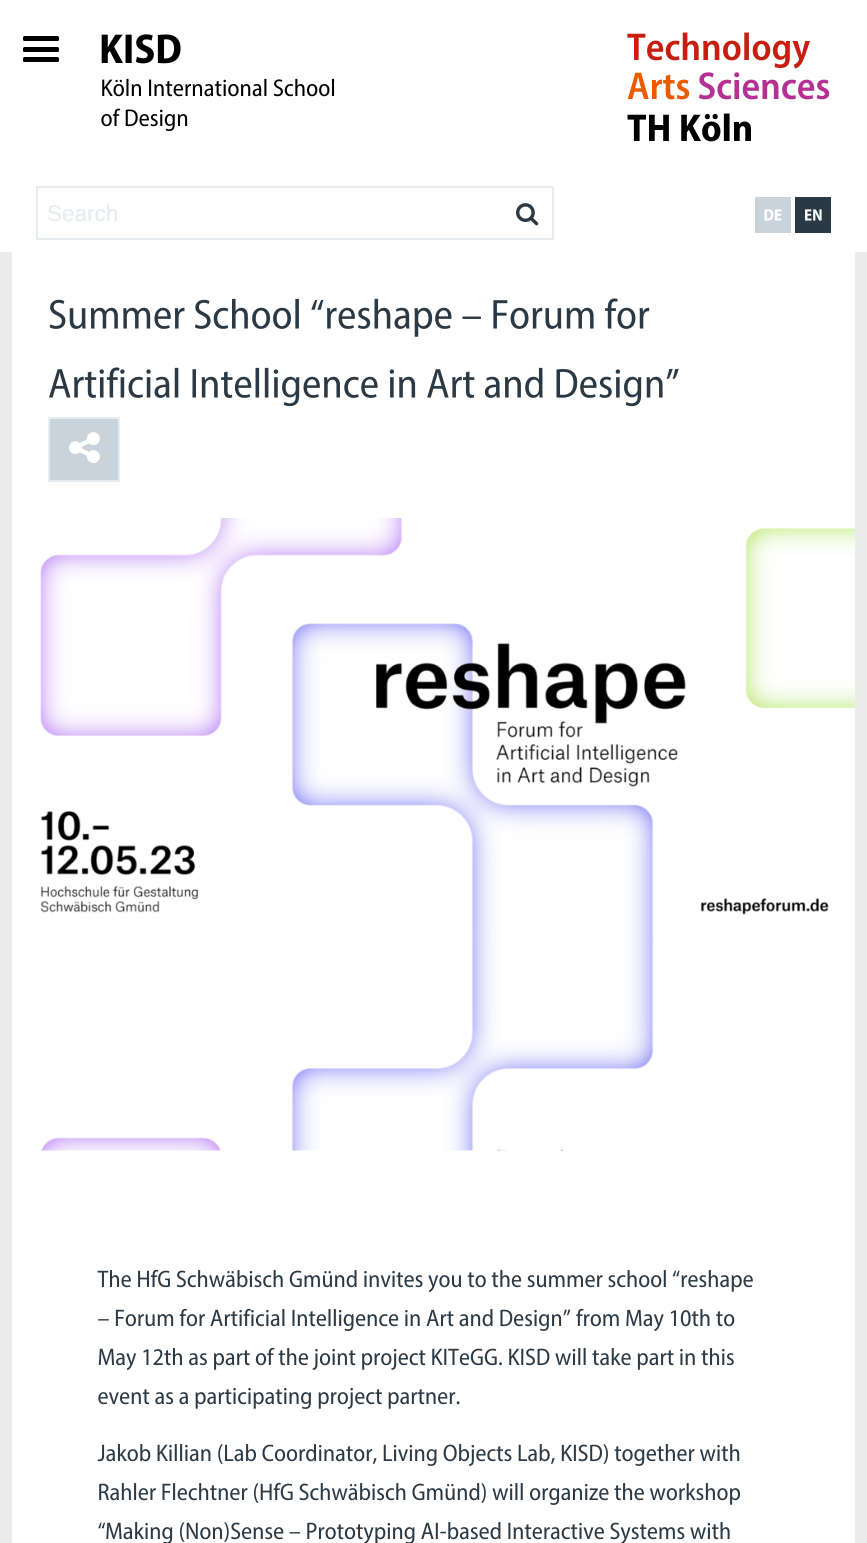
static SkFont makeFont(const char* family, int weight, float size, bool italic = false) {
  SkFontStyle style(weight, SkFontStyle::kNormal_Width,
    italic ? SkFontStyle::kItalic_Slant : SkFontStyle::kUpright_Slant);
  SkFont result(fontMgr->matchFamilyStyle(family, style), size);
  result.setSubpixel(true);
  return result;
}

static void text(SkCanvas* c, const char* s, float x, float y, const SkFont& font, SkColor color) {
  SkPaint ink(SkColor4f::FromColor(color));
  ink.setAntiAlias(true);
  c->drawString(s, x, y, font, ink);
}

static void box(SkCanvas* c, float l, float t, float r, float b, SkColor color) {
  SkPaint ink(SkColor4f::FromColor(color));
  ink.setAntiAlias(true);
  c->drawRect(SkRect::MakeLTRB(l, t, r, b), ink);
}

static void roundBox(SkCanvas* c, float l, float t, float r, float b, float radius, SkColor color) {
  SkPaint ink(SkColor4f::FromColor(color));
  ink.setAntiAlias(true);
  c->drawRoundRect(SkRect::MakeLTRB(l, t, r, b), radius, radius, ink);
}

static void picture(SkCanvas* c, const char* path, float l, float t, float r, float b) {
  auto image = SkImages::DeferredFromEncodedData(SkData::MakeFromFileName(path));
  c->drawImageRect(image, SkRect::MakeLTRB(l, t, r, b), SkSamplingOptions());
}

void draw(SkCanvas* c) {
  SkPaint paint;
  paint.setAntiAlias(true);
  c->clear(0xffececec);
  box(c, 0, 0, 867, 252, 0xffffffff);
  roundBox(c, 23, 47, 59, 52, 1.5f, 0xff000000);
  roundBox(c, 23, 36, 59, 41, 1.5f, 0xff000000);
  roundBox(c, 23, 57, 59, 62, 1.5f, 0xff000000);
  picture(c, "img_01.png", 101, 34, 181, 64);
  picture(c, "img_02.png", 102, 78, 335, 97);
  picture(c, "img_03.png", 101, 108, 188, 131);
  picture(c, "img_04.png", 627, 32, 810, 69);
  picture(c, "img_05.png", 627, 72, 690, 100);
  picture(c, "img_06.png", 699, 72, 830, 100);
  picture(c, "img_07.png", 627, 113, 751, 142);
  paint.setStyle(SkPaint::kStroke_Style);
  paint.setStrokeWidth(2);
  paint.setColor(0xffe7ecf0);
  c->drawRect(SkRect::MakeLTRB(37, 187, 553, 239), paint);
  SkFont face1 = makeFont("Liberation Sans", 400, 22.5f);
  text(c, "Search", 47, 221, face1, 0xffe7ecf0);
  picture(c, "img_08.png", 516, 203, 539, 226);
  box(c, 755, 197, 791, 233, 0xffc8d3dc);
  picture(c, "img_09.png", 764, 209, 782, 221);
  box(c, 795, 197, 831, 233, 0xff2a3944);
  picture(c, "img_10.png", 805, 209, 822, 221);
  box(c, 12, 252, 855, 518, 0xffffffff);
  picture(c, "img_11.png", 49, 298, 650, 337);
  picture(c, "img_12.png", 49, 367, 679, 407);
  paint.setStyle(SkPaint::kFill_Style);
  paint.setColor(0xffc8d3dc);
  c->drawRect(SkRect::MakeLTRB(49, 418, 119, 481), paint);
  paint.setStyle(SkPaint::kStroke_Style);
  paint.setColor(0xffe7ecf0);
  c->drawRect(SkRect::MakeLTRB(49, 418, 119, 481), paint);
  picture(c, "img_13.png", 69, 432, 100, 463);
  box(c, 12, 1150, 855, 1543, 0xffffffff);
  picture(c, "img_14.png", 12, 518, 855, 1151);
  picture(c, "img_15.png", 97, 1269, 666, 1293);
  picture(c, "img_16.png", 672, 1270, 753, 1292);
  picture(c, "img_17.png", 98, 1308, 571, 1331);
  picture(c, "img_18.png", 576, 1308, 735, 1332);
  picture(c, "img_19.png", 98, 1347, 734, 1371);
  picture(c, "img_20.png", 98, 1387, 460, 1409);
  picture(c, "img_21.png", 97, 1444, 740, 1466);
  picture(c, "img_22.png", 99, 1482, 740, 1505);
  picture(c, "img_23.png", 98, 1522, 106, 1529);
  picture(c, "img_24.png", 106, 1522, 730, 1543);
}
